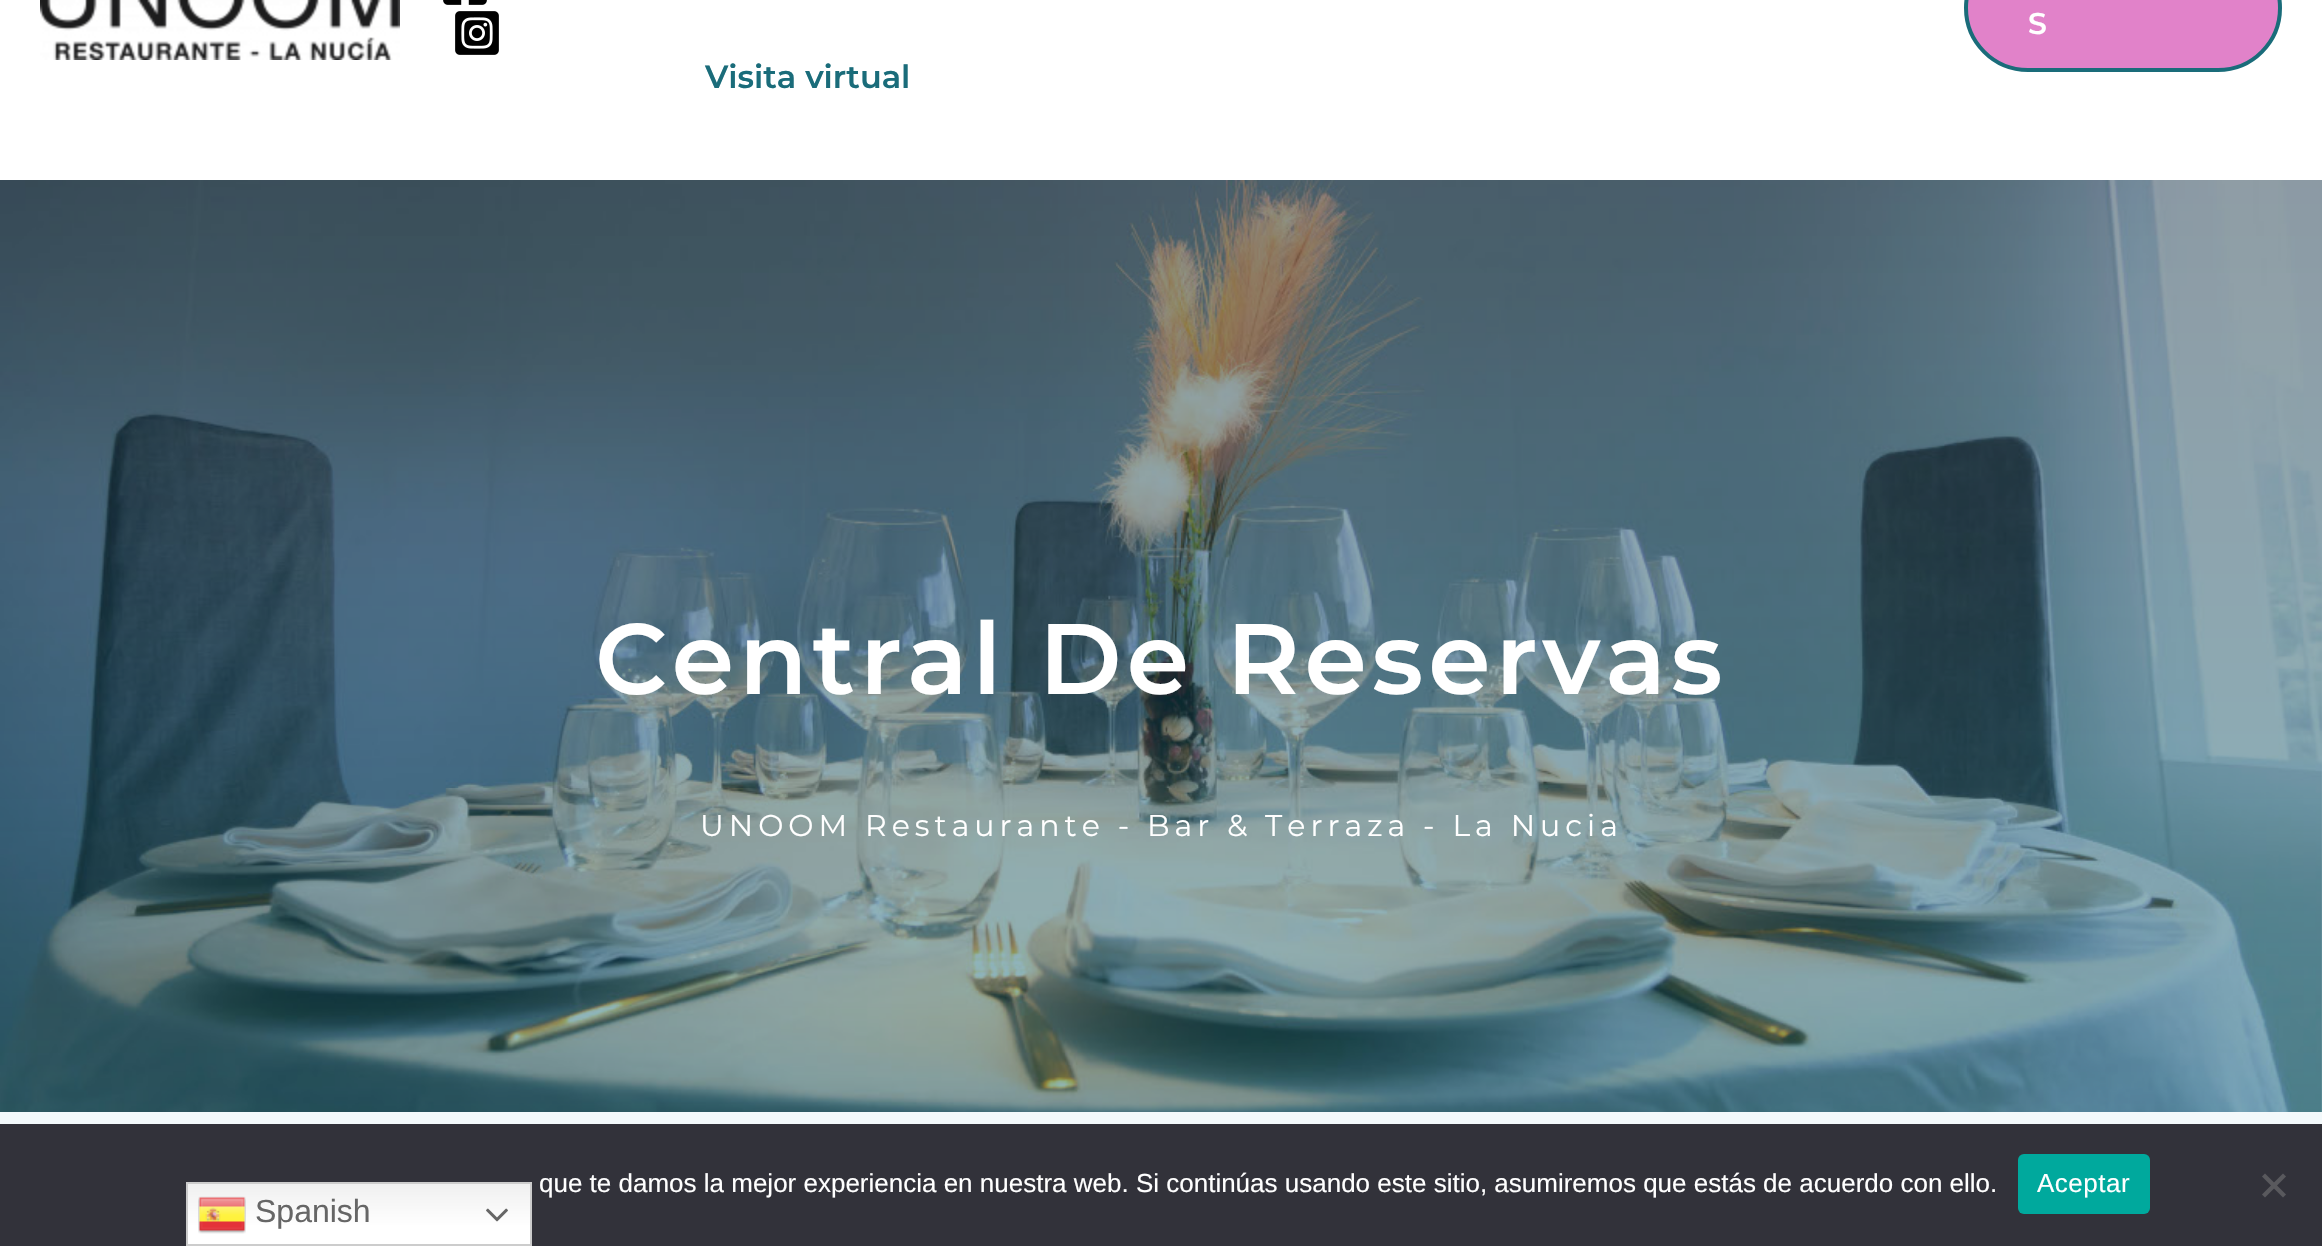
static SkFont makeFont(const char* family, int weight, float size, bool italic = false) {
  SkFontStyle style(weight, SkFontStyle::kNormal_Width,
    italic ? SkFontStyle::kItalic_Slant : SkFontStyle::kUpright_Slant);
  SkFont result(fontMgr->matchFamilyStyle(family, style), size);
  result.setSubpixel(true);
  return result;
}

static void text(SkCanvas* c, const char* s, float x, float y, const SkFont& font, SkColor color) {
  SkPaint ink(SkColor4f::FromColor(color));
  ink.setAntiAlias(true);
  c->drawString(s, x, y, font, ink);
}

static void spacedText(SkCanvas* c, const char* s, float x, float y, const SkFont& font, const SkPaint& ink, float letter, float word) {
  std::vector<SkGlyphID> glyphs(font.countText(s, strlen(s), SkTextEncoding::kUTF8));
  std::vector<float> xs(glyphs.size());
  font.textToGlyphs(s, strlen(s), SkTextEncoding::kUTF8, glyphs);
  font.getXPos(glyphs, xs, x);
  float extra = 0;
  for (size_t i = 0; i < glyphs.size(); i++) {
    xs[i] += extra;
    extra += letter + word * (glyphs[i] == font.unicharToGlyph(' '));
  }
  c->drawTextBlob(SkTextBlob::MakeFromPosHGlyphs(glyphs, xs, y, font), 0, 0, ink);
}

static void box(SkCanvas* c, float l, float t, float r, float b, SkColor color) {
  SkPaint ink(SkColor4f::FromColor(color));
  ink.setAntiAlias(true);
  c->drawRect(SkRect::MakeLTRB(l, t, r, b), ink);
}

static void roundBox(SkCanvas* c, float l, float t, float r, float b, float radius, SkColor color) {
  SkPaint ink(SkColor4f::FromColor(color));
  ink.setAntiAlias(true);
  c->drawRoundRect(SkRect::MakeLTRB(l, t, r, b), radius, radius, ink);
}

static void picture(SkCanvas* c, const char* path, float l, float t, float r, float b) {
  auto image = SkImages::DeferredFromEncodedData(SkData::MakeFromFileName(path));
  c->drawImageRect(image, SkRect::MakeLTRB(l, t, r, b), SkSamplingOptions());
}

void draw(SkCanvas* c) {
  SkPaint paint;
  paint.setAntiAlias(true);
  c->clear(0xfff3f9fb);
  box(c, 0, 0, 2322, 180, 0xffffffff);
  picture(c, "img_01.png", 40, 0, 400, 60);
  picture(c, "img_02.png", 443, 0, 487, 5);
  picture(c, "img_03.png", 455, 11, 499, 55);
  paint.setColor(0xffe182c9);
  c->drawRoundRect(SkRect::MakeLTRB(1966, -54, 2280, 70), 62, 62, paint);
  paint.setStyle(SkPaint::kStroke_Style);
  paint.setStrokeWidth(4);
  paint.setColor(0xff1a6c7a);
  c->drawRoundRect(SkRect::MakeLTRB(1966, -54, 2280, 70), 62, 62, paint);
  SkFont face1 = makeFont("Montserrat", 600, 30);
  paint.setStyle(SkPaint::kFill_Style);
  paint.setColor(0xffffffff);
  spacedText(c, "S", 2028, 34, face1, paint, 4, 0);
  SkFont face2 = makeFont("Montserrat", 600, 32);
  text(c, "Visita virtual", 705, 88, face2, 0xff1a6c7a);
  picture(c, "img_04.png", 0, 180, 2322, 1112);
  {
    const SkColor colors[] = {0x7a153243, 0x7a1a6c7a};
    const float stops[] = {0, 1};
    const SkPoint ends[] = {{1161, 180}, {1161, 1112}};
    paint.setShader(SkGradientShader::MakeLinear(ends, colors, stops, 2, SkTileMode::kClamp));
    paint.setAlpha(255);
  }
  c->drawRect(SkRect::MakeLTRB(0, 180, 2322, 1112), paint);
  SkFont face3 = makeFont("Montserrat", 600, 100);
  paint.setShader(nullptr);
  paint.setColor(0xffffffff);
  spacedText(c, "Central De Reservas", 595, 694, face3, paint, 5, 0);
  SkFont face4 = makeFont("Montserrat", 400, 30);
  spacedText(c, "UNOOM Restaurante - Bar & Terraza - La Nucia", 700, 836, face4, paint, 5, 0);
  box(c, 0, 1124, 2322, 1246, 0xff32323a);
  SkFont face5 = makeFont("Liberation Sans", 400, 26);
  text(c, "que te damos la mejor experiencia en nuestra web. Si continúas usando este sitio, asumiremos que estás de acuerdo con ello.", 539, 1192, face5, 0xffffffff);
  roundBox(c, 2018, 1154, 2150, 1214, 6, 0xff00a99d);
  spacedText(c, "Aceptar", 2037, 1192, face5, paint, 0.5f, 0);
  paint.setColor(0xff59595d);
  c->drawPath(SkPathBuilder().moveTo(2283, 1173.5f).lineTo(2286, 1176.5f).lineTo(2265, 1197.5f).lineTo(2262, 1194.5f).close().detach(), paint);
  c->drawPath(SkPathBuilder().moveTo(2262, 1176.5f).lineTo(2265, 1173.5f).lineTo(2286, 1194.5f).lineTo(2283, 1197.5f).close().detach(), paint);
  {
    const SkColor colors[] = {0xffefefef, 0xffffffff};
    const float stops[] = {0, 0.7f};
    const SkPoint ends[] = {{359, 1182}, {359, 1246}};
    paint.setShader(SkGradientShader::MakeLinear(ends, colors, stops, 2, SkTileMode::kClamp));
    paint.setAlpha(255);
  }
  c->drawRect(SkRect::MakeLTRB(188, 1184, 530, 1244), paint);
  paint.setStyle(SkPaint::kStroke_Style);
  paint.setStrokeWidth(2);
  paint.setShader(nullptr);
  paint.setColor(0xffcccccc);
  c->drawRect(SkRect::MakeLTRB(187, 1183, 531, 1245), paint);
  picture(c, "img_05.png", 198, 1196, 246, 1234);
  SkFont face6 = makeFont("Liberation Sans", 400, 32);
  text(c, "Spanish", 255, 1222, face6, 0xff666666);
  picture(c, "img_06.png", 486, 1208, 508, 1222);
}
